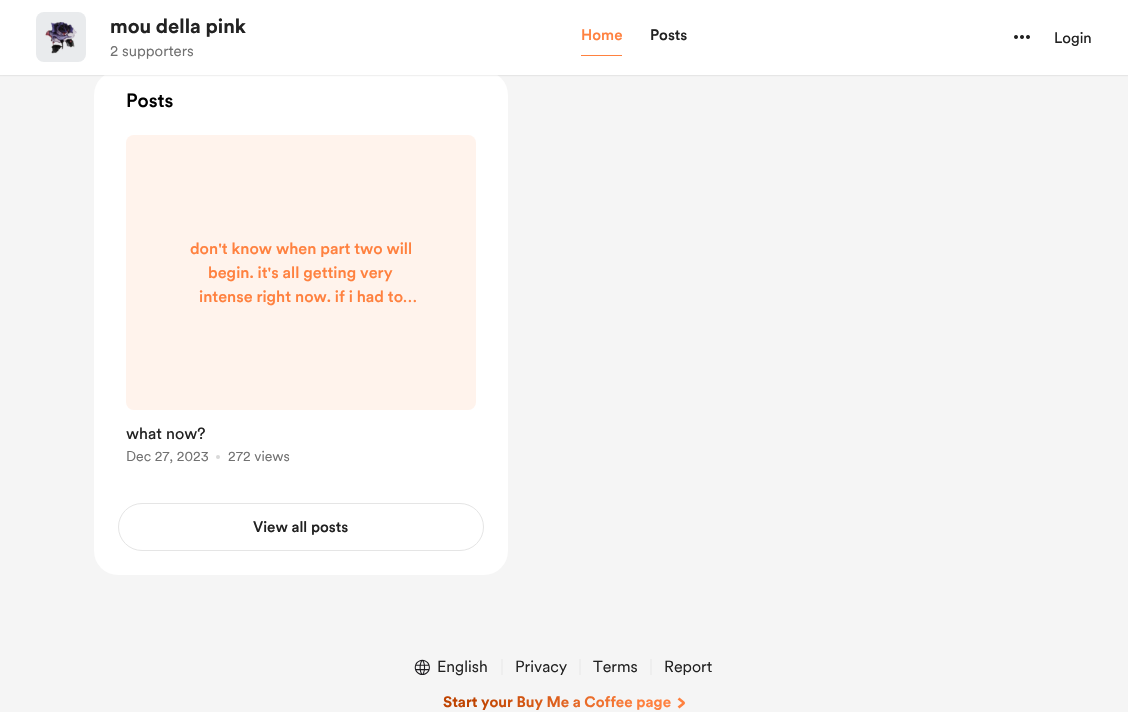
static SkFont makeFont(const char* family, int weight, float size, bool italic = false) {
  SkFontStyle style(weight, SkFontStyle::kNormal_Width,
    italic ? SkFontStyle::kItalic_Slant : SkFontStyle::kUpright_Slant);
  SkFont result(fontMgr->matchFamilyStyle(family, style), size);
  result.setSubpixel(true);
  return result;
}

static void text(SkCanvas* c, const char* s, float x, float y, const SkFont& font, SkColor color) {
  SkPaint ink(SkColor4f::FromColor(color));
  ink.setAntiAlias(true);
  c->drawString(s, x, y, font, ink);
}

static void box(SkCanvas* c, float l, float t, float r, float b, SkColor color) {
  SkPaint ink(SkColor4f::FromColor(color));
  ink.setAntiAlias(true);
  c->drawRect(SkRect::MakeLTRB(l, t, r, b), ink);
}

static void roundBox(SkCanvas* c, float l, float t, float r, float b, float radius, SkColor color) {
  SkPaint ink(SkColor4f::FromColor(color));
  ink.setAntiAlias(true);
  c->drawRoundRect(SkRect::MakeLTRB(l, t, r, b), radius, radius, ink);
}

static void picture(SkCanvas* c, const char* path, float l, float t, float r, float b) {
  auto image = SkImages::DeferredFromEncodedData(SkData::MakeFromFileName(path));
  c->drawImageRect(image, SkRect::MakeLTRB(l, t, r, b), SkSamplingOptions());
}

void draw(SkCanvas* c) {
  SkPaint paint;
  paint.setAntiAlias(true);
  c->clear(0xfff5f5f5);
  roundBox(c, 94, 71, 508, 575, 24, 0xffffffff);
  paint.setColor(0x0f000000);
  paint.setMaskFilter(SkMaskFilter::MakeBlur(kNormal_SkBlurStyle, 0.5f));
  c->drawRect(SkRect::MakeLTRB(0, 1, 1128, 76), paint);
  paint.setMaskFilter(nullptr);
  box(c, 0, 0, 1128, 75, 0xffffffff);
  picture(c, "img_01.png", 36, 12, 86, 62);
  picture(c, "img_02.png", 45, 22, 77, 54);
  SkFont face1 = makeFont("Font", 700, 20);
  text(c, "mou della pink", 110, 33, face1, 0xff222222);
  SkFont face2 = makeFont("Font", 400, 15);
  text(c, "2 supporters", 110, 56, face2, 0xff717171);
  SkFont face3 = makeFont("Font", 500, 15);
  text(c, "Home", 581, 40, face3, 0xffff813f);
  box(c, 581, 55, 622, 56, 0xffff813f);
  text(c, "Posts", 650, 40, face3, 0xff222222);
  picture(c, "img_03.png", 1014, 35, 1030, 39);
  SkFont face4 = makeFont("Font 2", 400, 15);
  text(c, "Login", 1054, 43, face4, 0xff222222);
  SkFont face5 = makeFont("Font", 500, 19);
  text(c, "Posts", 126, 107, face5, 0xff000000);
  roundBox(c, 126, 135, 476, 410, 8, 0xfffff3ec);
  SkFont face6 = makeFont("Font", 500, 16);
  text(c, "don't know when part two will", 190, 254, face6, 0xffff813f);
  text(c, "begin. it's all getting very", 208, 278, face6, 0xffff813f);
  text(c, "intense right now. if i had to…", 199, 302, face6, 0xffff813f);
  SkFont face7 = makeFont("Font 2", 400, 16);
  text(c, "what now?", 126, 439, face7, 0xff222222);
  SkFont face8 = makeFont("Font", 400, 14);
  text(c, "Dec 27, 2023", 126, 461, face8, 0xff717171);
  paint.setColor(0xffd9d9d9);
  c->drawCircle(218, 457, 2, paint);
  text(c, "272 views", 228, 461, face8, 0xff717171);
  paint.setStyle(SkPaint::kStroke_Style);
  paint.setStrokeWidth(1);
  paint.setColor(0xffe5e5e5);
  c->drawRoundRect(SkRect::MakeLTRB(118.5f, 503.5f, 483.5f, 550.5f), 23.5f, 23.5f, paint);
  text(c, "View all posts", 253, 532, face3, 0xff222222);
  picture(c, "img_04.png", 414, 659, 430, 675);
  SkFont face9 = makeFont("Font", 400, 16);
  text(c, "English", 437, 672, face9, 0xff222222);
  paint.setColor(0xffe7e7e7);
  c->drawPath(SkPathBuilder().moveTo(502, 659).lineTo(502, 675).detach(), paint);
  text(c, "Privacy", 515, 672, face9, 0xff222222);
  c->drawPath(SkPathBuilder().moveTo(580, 659).lineTo(580, 675).detach(), paint);
  text(c, "Terms", 593, 672, face9, 0xff222222);
  c->drawPath(SkPathBuilder().moveTo(651, 659).lineTo(651, 675).detach(), paint);
  text(c, "Report", 664, 672, face9, 0xff222222);
  SkFont face10 = makeFont("Font", 700, 15);
  paint.setStyle(SkPaint::kFill_Style);
  {
    const SkColor colors[] = {0xffbf4300, 0xffff813f};
    const float stops[] = {0.14f, 0.82f};
    const SkPoint ends[] = {{457, 657}, {671, 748}};
    paint.setShader(SkGradientShader::MakeLinear(ends, colors, stops, 2, SkTileMode::kClamp));
    paint.setAlpha(255);
  }
  c->drawString("Start your Buy Me a Coffee page", 443, 707, face10, paint);
  paint.setStyle(SkPaint::kStroke_Style);
  paint.setStrokeWidth(2.7f);
  paint.setShader(nullptr);
  paint.setColor(0xffff813f);
  c->drawPath(SkPathBuilder().moveTo(678.5f, 698.5f).cubicTo(685.5f, 704.5f, 685.5f, 701.5f, 678.5f, 707.5f).detach(), paint);
}
